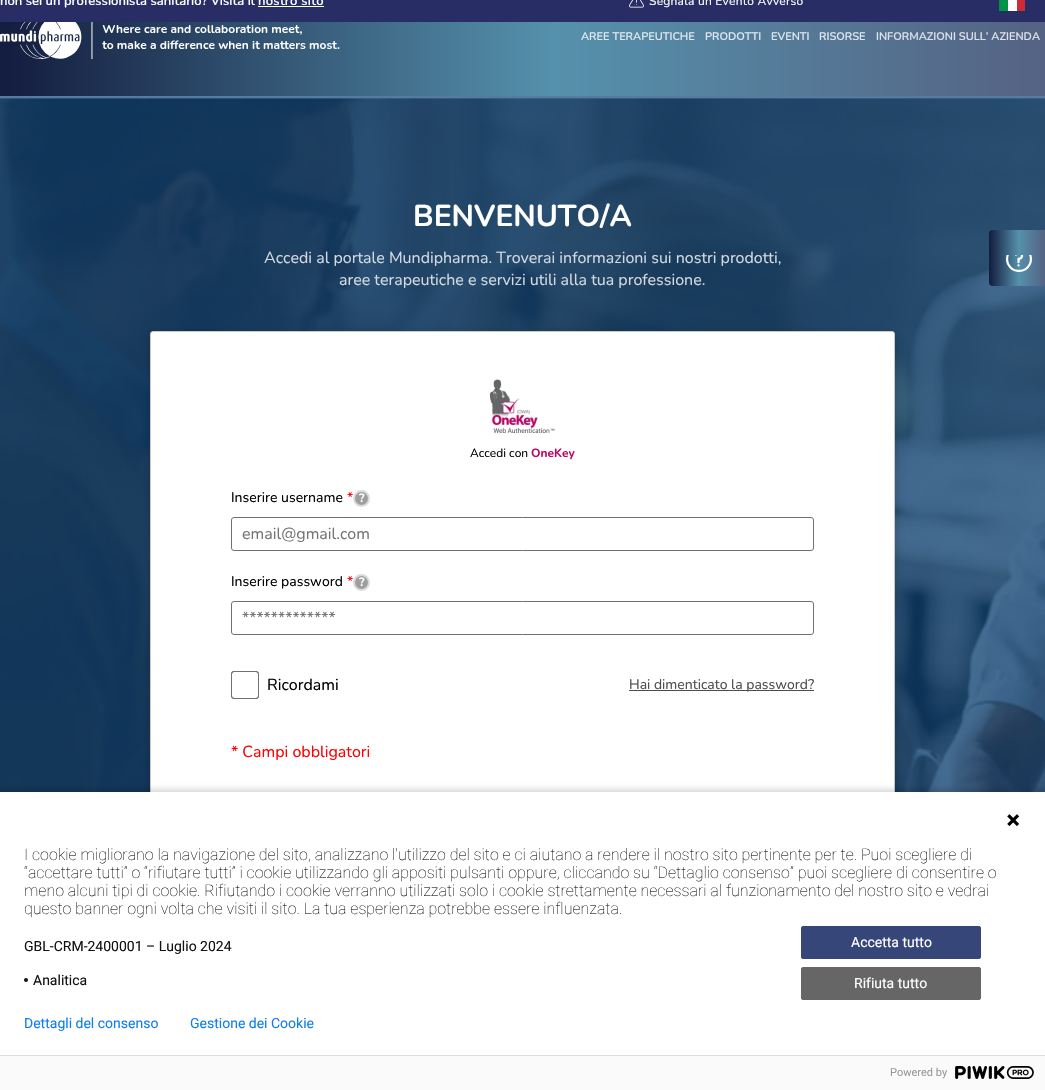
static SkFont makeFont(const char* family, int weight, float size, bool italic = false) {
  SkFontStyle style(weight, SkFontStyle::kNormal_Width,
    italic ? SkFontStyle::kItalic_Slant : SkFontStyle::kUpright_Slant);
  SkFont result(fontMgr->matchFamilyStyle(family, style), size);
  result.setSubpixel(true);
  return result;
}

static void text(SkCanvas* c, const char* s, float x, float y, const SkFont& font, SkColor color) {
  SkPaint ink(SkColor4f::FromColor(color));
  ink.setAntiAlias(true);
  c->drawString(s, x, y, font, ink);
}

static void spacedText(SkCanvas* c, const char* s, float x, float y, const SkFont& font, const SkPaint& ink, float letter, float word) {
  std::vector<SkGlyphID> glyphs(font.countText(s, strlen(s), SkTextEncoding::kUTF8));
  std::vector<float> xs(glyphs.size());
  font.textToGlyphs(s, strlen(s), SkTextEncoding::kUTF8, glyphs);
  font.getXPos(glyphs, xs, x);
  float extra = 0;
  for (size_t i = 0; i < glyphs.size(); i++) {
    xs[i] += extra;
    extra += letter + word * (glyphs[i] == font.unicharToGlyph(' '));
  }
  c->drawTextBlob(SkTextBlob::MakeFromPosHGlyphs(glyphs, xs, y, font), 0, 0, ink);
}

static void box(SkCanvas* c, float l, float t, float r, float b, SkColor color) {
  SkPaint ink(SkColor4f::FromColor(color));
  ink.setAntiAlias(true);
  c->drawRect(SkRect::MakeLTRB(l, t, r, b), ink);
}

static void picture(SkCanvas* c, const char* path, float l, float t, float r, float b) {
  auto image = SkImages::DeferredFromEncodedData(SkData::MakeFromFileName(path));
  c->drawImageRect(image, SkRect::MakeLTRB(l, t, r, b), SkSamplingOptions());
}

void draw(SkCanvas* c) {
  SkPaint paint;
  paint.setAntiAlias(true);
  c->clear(0xffffffff);
  box(c, 0, 0, 1045, 22, 0xff282e65);
  SkFont face1 = makeFont("Nunito", 600, 13);
  text(c, "non sei un professionista sanitario? Visita il", 0, 5, face1, 0xffffffff);
  paint.setColor(0xffffffff);
  spacedText(c, "nostro sito", 258, 5, face1, paint, 0.25f, 0);
  box(c, 258, 6, 324, 7, 0xffffffff);
  picture(c, "img_01.png", 629, 0, 644, 8);
  SkFont face2 = makeFont("Nunito", 400, 12);
  spacedText(c, "Segnala un Evento Avverso", 649, 5, face2, paint, 0.25f, 0);
  box(c, 1008, 0, 1017, 11, 0xffffffff);
  box(c, 999, 0, 1008, 11, 0xff009246);
  box(c, 1017, 0, 1025, 11, 0xffce2b37);
  {
    const SkColor colors[] = {0xff141e40, 0xff5591ac, 0xff556283};
    const float stops[] = {0.01f, 0.53f, 1};
    const SkPoint ends[] = {{0, 37}, {1045, 37}};
    paint.setShader(SkGradientShader::MakeLinear(ends, colors, stops, 3, SkTileMode::kClamp));
    paint.setAlpha(255);
  }
  c->drawRect(SkRect::MakeLTRB(0, 22, 1045, 74), paint);
  picture(c, "img_02.png", 0, 22, 340, 59);
  SkFont face3 = makeFont("Nunito", 600, 11);
  text(c, "AREE TERAPEUTICHE", 581, 40, face3, 0xffdde7ed);
  text(c, "PRODOTTI", 705, 40, face3, 0xffdde7ed);
  text(c, "EVENTI", 771, 40, face3, 0xffdde7ed);
  text(c, "RISORSE", 819, 40, face3, 0xffdde7ed);
  text(c, "INFORMAZIONI SULL’ AZIENDA", 876, 40, face3, 0xffdde1e8);
  {
    const SkColor colors[] = {0xff141e40, 0xff5591ac, 0xff556283};
    const float stops[] = {0.01f, 0.53f, 1};
    const SkPoint ends[] = {{0, 59}, {1045, 59}};
    paint.setShader(SkGradientShader::MakeLinear(ends, colors, stops, 3, SkTileMode::kClamp));
    paint.setAlpha(255);
  }
  c->drawRect(SkRect::MakeLTRB(0, 74, 1045, 96), paint);
  picture(c, "img_04.png", 0, 96, 1045, 792);
  {
    const SkColor colors[] = {0xff141e40, 0xff5591ac, 0xff556283};
    const float stops[] = {0.01f, 0.53f, 1};
    const SkPoint ends[] = {{989, 258}, {1045, 258}};
    paint.setShader(SkGradientShader::MakeLinear(ends, colors, stops, 3, SkTileMode::kClamp));
    paint.setAlpha(255);
  }
  c->drawPath(SkPathBuilder().moveTo(992, 230).lineTo(1045, 230).lineTo(1045, 286).lineTo(992, 286).cubicTo(990.5f, 286, 989, 284.5f, 989, 283).lineTo(989, 233).cubicTo(989, 231.5f, 990.5f, 230, 992, 230).close().detach(), paint);
  picture(c, "img_03.png", 1006, 255, 1032, 272);
  SkFont face4 = makeFont("Nunito", 700, 30);
  text(c, "BENVENUTO/A", 413, 226, face4, 0xffffffff);
  SkFont face5 = makeFont("Nunito", 400, 16);
  text(c, "Accedi al portale Mundipharma. Troverai informazioni sui nostri prodotti,", 264, 263, face5, 0xffd2d9e0);
  text(c, "aree terapeutiche e servizi utili alla tua professione.", 339, 285, face5, 0xffd2d9e0);
  paint.setShader(nullptr);
  paint.setColor(0x33000000);
  paint.setMaskFilter(SkMaskFilter::MakeBlur(kNormal_SkBlurStyle, 5));
  c->drawRoundRect(SkRect::MakeLTRB(150, 334, 895, 947), 3, 3, paint);
  paint.setMaskFilter(nullptr);
  paint.setColor(0xffffffff);
  c->drawRoundRect(SkRect::MakeLTRB(150.5f, 331.5f, 894.5f, 943.5f), 2.5f, 2.5f, paint);
  paint.setStyle(SkPaint::kStroke_Style);
  paint.setStrokeWidth(1);
  paint.setColor(0xffc9c9c9);
  c->drawRoundRect(SkRect::MakeLTRB(150.5f, 331.5f, 894.5f, 943.5f), 2.5f, 2.5f, paint);
  picture(c, "img_05.png", 489, 379, 555, 433);
  text(c, "Accedi con", 470, 457, face2, 0xff000000);
  SkFont face6 = makeFont("Nunito", 700, 12);
  text(c, "OneKey", 531, 457, face6, 0xffbe0660);
  SkFont face7 = makeFont("Nunito", 400, 14);
  text(c, "Inserire username", 231, 502, face7, 0xff000000);
  text(c, "*", 347, 502, face7, 0xffff0000);
  paint.setStyle(SkPaint::kFill_Style);
  paint.setColor(0xff9e9e9e);
  c->drawCircle(361.5f, 498.5f, 7.5f, paint);
  paint.setStyle(SkPaint::kStroke_Style);
  paint.setStrokeWidth(2);
  paint.setColor(0xffdbdbdb);
  c->drawCircle(361.5f, 498.5f, 7.5f, paint);
  text(c, "?", 359, 502, face6, 0xffffffff);
  paint.setStrokeWidth(1);
  paint.setColor(0xff707070);
  c->drawRoundRect(SkRect::MakeLTRB(231.5f, 517.5f, 813.5f, 550.5f), 2.5f, 2.5f, paint);
  text(c, "email@gmail.com", 242, 539, face5, 0xff757575);
  text(c, "Inserire password", 231, 586, face7, 0xff000000);
  text(c, "*", 347, 586, face7, 0xffff0000);
  paint.setStyle(SkPaint::kFill_Style);
  paint.setColor(0xff9e9e9e);
  c->drawCircle(361.5f, 582.5f, 7.5f, paint);
  paint.setStyle(SkPaint::kStroke_Style);
  paint.setStrokeWidth(2);
  paint.setColor(0xffdbdbdb);
  c->drawCircle(361.5f, 582.5f, 7.5f, paint);
  text(c, "?", 359, 586, face6, 0xffffffff);
  paint.setStrokeWidth(1);
  paint.setColor(0xff707070);
  c->drawRoundRect(SkRect::MakeLTRB(231.5f, 601.5f, 813.5f, 634.5f), 2.5f, 2.5f, paint);
  text(c, "*************", 242, 623, face5, 0xff757575);
  c->drawRoundRect(SkRect::MakeLTRB(231.5f, 671.5f, 258.5f, 698.5f), 2.5f, 2.5f, paint);
  c->drawRoundRect(SkRect::MakeLTRB(231.5f, 671.5f, 258.5f, 698.5f), 2.5f, 2.5f, paint);
  text(c, "Ricordami", 267, 690, face5, 0xff000000);
  box(c, 629, 690, 814, 691, 0xff4d4d4d);
  text(c, "Hai dimenticato la password?", 629, 689, face7, 0xff4d4d4d);
  text(c, "* Campi obbligatori", 231, 757, face5, 0xffff0000);
  paint.setStyle(SkPaint::kFill_Style);
  paint.setColor(0x24000000);
  paint.setMaskFilter(SkMaskFilter::MakeBlur(kNormal_SkBlurStyle, 2.5f));
  c->drawRect(SkRect::MakeLTRB(-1, 789, 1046, 1089), paint);
  paint.setMaskFilter(nullptr);
  box(c, 0, 792, 1045, 1055, 0xffffffff);
  picture(c, "img_06.png", 1007, 814, 1020, 827);
  SkFont face8 = makeFont("Roboto", 100, 16);
  text(c, "I cookie migliorano la navigazione del sito, analizzano l'utilizzo del sito e ci aiutano a rendere il nostro sito pertinente per te. Puoi scegliere di", 24, 860, face8, 0xff131313);
  text(c, "“accettare tutti” o “rifiutare tutti” i cookie utilizzando gli appositi pulsanti oppure, cliccando su “Dettaglio consenso” puoi scegliere di consentire o", 24, 878, face8, 0xff131313);
  text(c, "meno alcuni tipi di cookie. Rifiutando i cookie verranno utilizzati solo i cookie strettamente necessari al funzionamento del nostro sito e vedrai", 24, 896, face8, 0xff131313);
  text(c, "questo banner ogni volta che visiti il sito. La tua esperienza potrebbe essere influenzata.", 24, 914, face8, 0xff131313);
  SkFont face9 = makeFont("Roboto", 400, 14);
  text(c, "GBL-CRM-2400001 – Luglio 2024", 24, 951, face9, 0xff131313);
  paint.setColor(0xff131313);
  c->drawCircle(26, 980, 2, paint);
  text(c, "Analitica", 33, 985, face9, 0xff131313);
  paint.setColor(0xff374678);
  c->drawRoundRect(SkRect::MakeLTRB(801.5f, 926.5f, 980.5f, 958.5f), 1.5f, 1.5f, paint);
  paint.setStyle(SkPaint::kStroke_Style);
  c->drawRoundRect(SkRect::MakeLTRB(801.5f, 926.5f, 980.5f, 958.5f), 1.5f, 1.5f, paint);
  text(c, "Accetta tutto", 851, 947, face9, 0xffffffff);
  paint.setStyle(SkPaint::kFill_Style);
  paint.setColor(0xff666666);
  c->drawRoundRect(SkRect::MakeLTRB(801.5f, 967.5f, 980.5f, 999.5f), 1.5f, 1.5f, paint);
  paint.setStyle(SkPaint::kStroke_Style);
  c->drawRoundRect(SkRect::MakeLTRB(801.5f, 967.5f, 980.5f, 999.5f), 1.5f, 1.5f, paint);
  text(c, "Rifiuta tutto", 854, 988, face9, 0xffffffff);
  text(c, "Dettagli del consenso", 24, 1028, face9, 0xff107ef1);
  text(c, "Gestione dei Cookie", 190, 1028, face9, 0xff107ef1);
  box(c, 0, 1056, 1045, 1090, 0xfffafafa);
  box(c, 0, 1055, 1045, 1056, 0xffdddddd);
  SkFont face10 = makeFont("Roboto", 400, 11);
  text(c, "Powered by", 890, 1076, face10, 0xff999999);
  picture(c, "img_07.png", 955, 1066, 1034, 1079);
}
